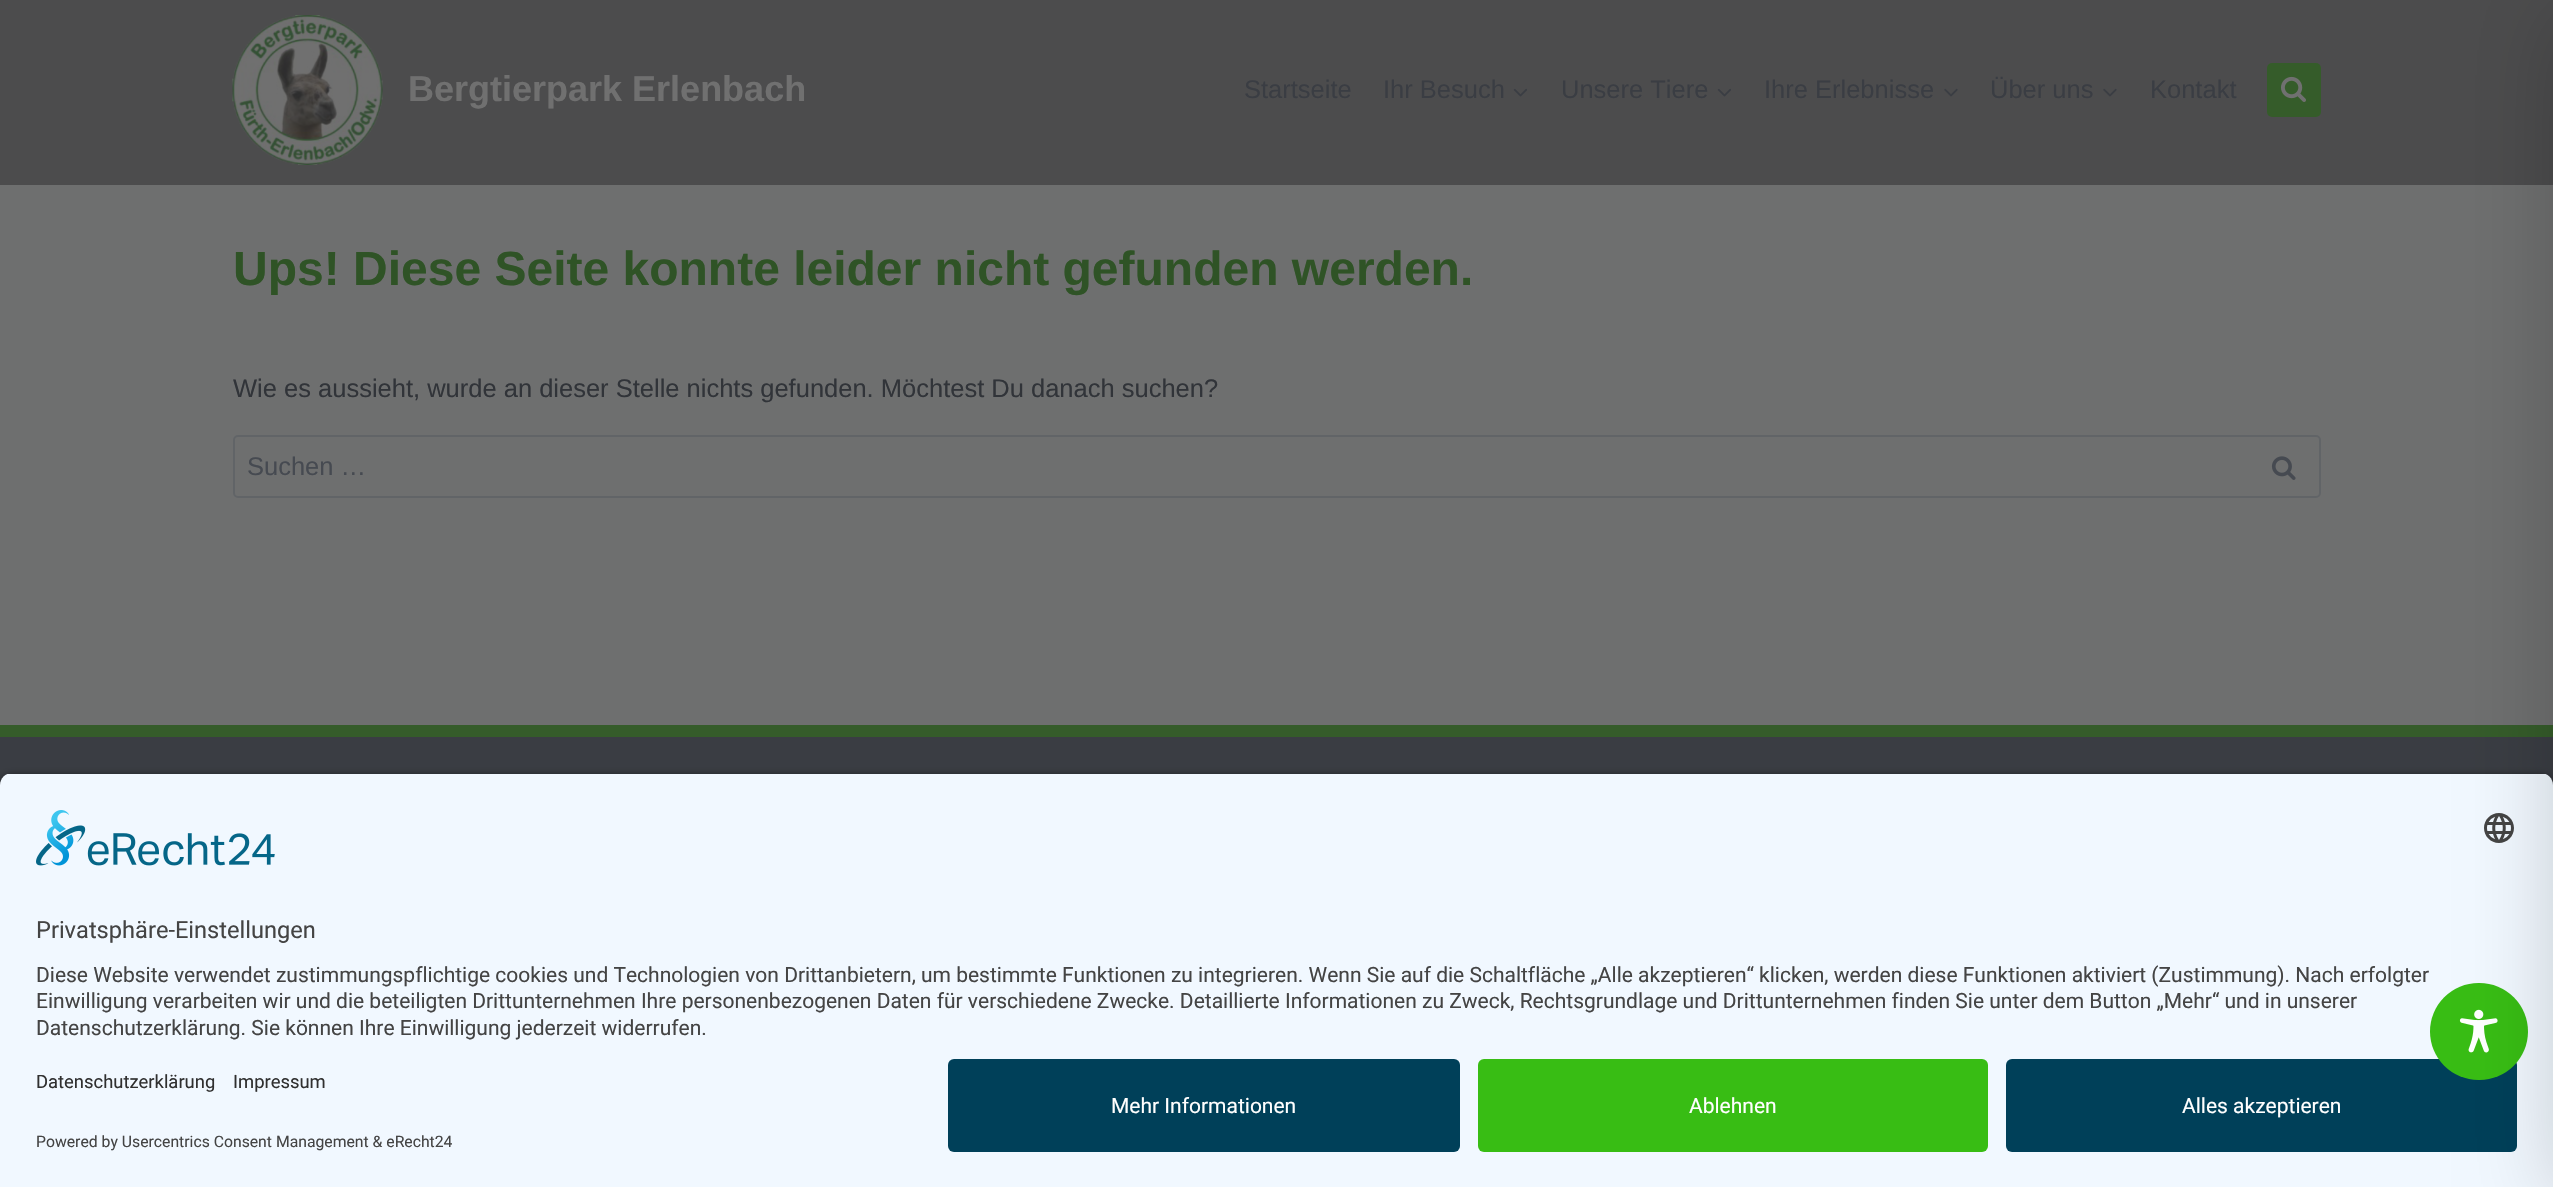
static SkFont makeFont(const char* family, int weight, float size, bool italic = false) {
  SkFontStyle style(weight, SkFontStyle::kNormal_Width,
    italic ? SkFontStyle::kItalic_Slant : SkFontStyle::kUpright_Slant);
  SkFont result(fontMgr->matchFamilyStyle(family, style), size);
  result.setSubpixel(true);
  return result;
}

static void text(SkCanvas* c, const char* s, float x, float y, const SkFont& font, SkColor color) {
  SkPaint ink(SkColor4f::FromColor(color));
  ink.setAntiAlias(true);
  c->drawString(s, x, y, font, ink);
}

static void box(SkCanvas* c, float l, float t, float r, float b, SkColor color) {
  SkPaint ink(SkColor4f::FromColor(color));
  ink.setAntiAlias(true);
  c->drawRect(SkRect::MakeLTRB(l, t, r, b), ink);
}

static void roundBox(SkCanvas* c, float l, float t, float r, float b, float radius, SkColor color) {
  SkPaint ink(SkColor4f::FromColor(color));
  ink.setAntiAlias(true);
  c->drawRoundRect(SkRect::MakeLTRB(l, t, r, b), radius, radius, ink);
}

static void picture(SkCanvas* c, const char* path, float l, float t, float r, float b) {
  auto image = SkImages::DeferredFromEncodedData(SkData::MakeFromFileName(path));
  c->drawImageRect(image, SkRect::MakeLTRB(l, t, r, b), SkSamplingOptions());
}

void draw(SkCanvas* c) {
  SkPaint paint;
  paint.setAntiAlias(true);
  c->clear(0xff6e6f6f);
  box(c, 0, 0, 2553, 185, 0xff4c4c4d);
  picture(c, "img_01.png", 232, 15, 383, 165);
  SkFont face1 = makeFont("Liberation Sans", 700, 36);
  text(c, "Bergtierpark Erlenbach", 408, 101, face1, 0xff707070);
  SkFont face2 = makeFont("Liberation Sans", 400, 25.5f);
  text(c, "Startseite", 1244, 98, face2, 0xff3a3d43);
  text(c, "Ihr Besuch", 1383, 98, face2, 0xff3a3d43);
  picture(c, "img_02.png", 1513, 88, 1527, 97);
  text(c, "Unsere Tiere", 1561, 98, face2, 0xff3a3d43);
  picture(c, "img_02.png", 1717, 88, 1731, 97);
  text(c, "Ihre Erlebnisse", 1764, 98, face2, 0xff3a3d43);
  picture(c, "img_03.png", 1944, 88, 1958, 97);
  text(c, "Über uns", 1990, 98, face2, 0xff3a3d43);
  picture(c, "img_03.png", 2103, 88, 2117, 97);
  text(c, "Kontakt", 2150, 98, face2, 0xff3a3d43);
  roundBox(c, 2267, 63, 2321, 117, 5, 0xff355c2a);
  picture(c, "img_04.png", 2281, 76, 2306, 102);
  SkFont face3 = makeFont("Liberation Sans", 700, 48);
  text(c, "Ups! Diese Seite konnte leider nicht gefunden werden.", 233, 285, face3, 0xff2f5326);
  text(c, "Wie es aussieht, wurde an dieser Stelle nichts gefunden. Möchtest Du danach suchen?", 233, 397, face2, 0xff313439);
  paint.setStyle(SkPaint::kStroke_Style);
  paint.setStrokeWidth(2);
  paint.setColor(0xff616467);
  c->drawRoundRect(SkRect::MakeLTRB(234, 436, 2320, 497), 4, 4, paint);
  text(c, "Suchen …", 247, 475, face2, 0xff464a51);
  picture(c, "img_05.png", 2271, 456, 2296, 480);
  box(c, 0, 737, 2553, 785, 0xff3a3d43);
  box(c, 0, 725, 2553, 737, 0xff355c2a);
  paint.setStyle(SkPaint::kFill_Style);
  paint.setColor(0xcc000000);
  paint.setMaskFilter(SkMaskFilter::MakeBlur(kNormal_SkBlurStyle, 5));
  c->drawRoundRect(SkRect::MakeLTRB(0, 777, 2553, 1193), 12, 12, paint);
  paint.setMaskFilter(nullptr);
  c->save();
  c->clipPath(SkPathBuilder().moveTo(12, 773).lineTo(2541, 773).cubicTo(2547.5f, 773, 2553, 778.5f, 2553, 785).lineTo(2553, 1047).lineTo(0, 1047).lineTo(0, 785).cubicTo(0, 778.5f, 5.5f, 773, 12, 773).close().detach(), true);
  box(c, 0, 774, 2553, 1047, 0xfff1f8ff);
  c->restore();
  picture(c, "img_07.png", 2484, 813, 2514, 843);
  box(c, 0, 1047, 2553, 1187, 0xfff1f8ff);
  roundBox(c, 2006, 1059, 2517, 1152, 6, 0xff004059);
  roundBox(c, 2430, 983, 2528, 1080, 48.5f, 0xff38bd14);
  picture(c, "img_08.png", 2459, 1009, 2498, 1053);
  paint.setColor(0x33000000);
  paint.setMaskFilter(SkMaskFilter::MakeBlur(kNormal_SkBlurStyle, 45));
  c->drawRect(SkRect::MakeLTRB(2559, 15, 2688, 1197), paint);
  paint.setMaskFilter(nullptr);
  picture(c, "img_06.png", 36, 810, 275, 866);
  SkFont face4 = makeFont("Roboto", 400, 23.6f);
  text(c, "Privatsphäre-Einstellungen", 36, 938, face4, 0xff444444);
  SkFont face5 = makeFont("Roboto", 400, 21);
  text(c, "Diese Website verwendet zustimmungspflichtige cookies und Technologien von Drittanbietern, um bestimmte Funktionen zu integrieren. Wenn Sie auf die Schaltfläche „Alle akzeptieren“ klicken, werden diese Funktionen aktiviert (Zustimmung). Nach erfolgter", 36, 982, face5, 0xff444444);
  text(c, "Einwilligung verarbeiten wir und die beteiligten Drittunternehmen Ihre personenbezogenen Daten für verschiedene Zwecke. Detaillierte Informationen zu Zweck, Rechtsgrundlage und Drittunternehmen finden Sie unter dem Button „Mehr“ und in unserer", 36, 1008, face5, 0xff444444);
  text(c, "Datenschutzerklärung. Sie können Ihre Einwilligung jederzeit widerrufen.", 36, 1035, face5, 0xff444444);
  SkFont face6 = makeFont("Roboto", 400, 18.4f);
  text(c, "Datenschutzerklärung", 36, 1088, face6, 0xff303030);
  text(c, "Impressum", 233, 1088, face6, 0xff303030);
  SkFont face7 = makeFont("Roboto", 400, 15.75f);
  text(c, "Powered by Usercentrics Consent Management & eRecht24", 36, 1147, face7, 0xff444444);
  roundBox(c, 948, 1059, 1460, 1152, 6, 0xff004059);
  text(c, "Mehr Informationen", 1111, 1113, face5, 0xffffffff);
  roundBox(c, 1478, 1059, 1988, 1152, 6, 0xff38bd14);
  text(c, "Ablehnen", 1689, 1113, face5, 0xffffffff);
  text(c, "Alles akzeptieren", 2182, 1113, face5, 0xffffffff);
}
